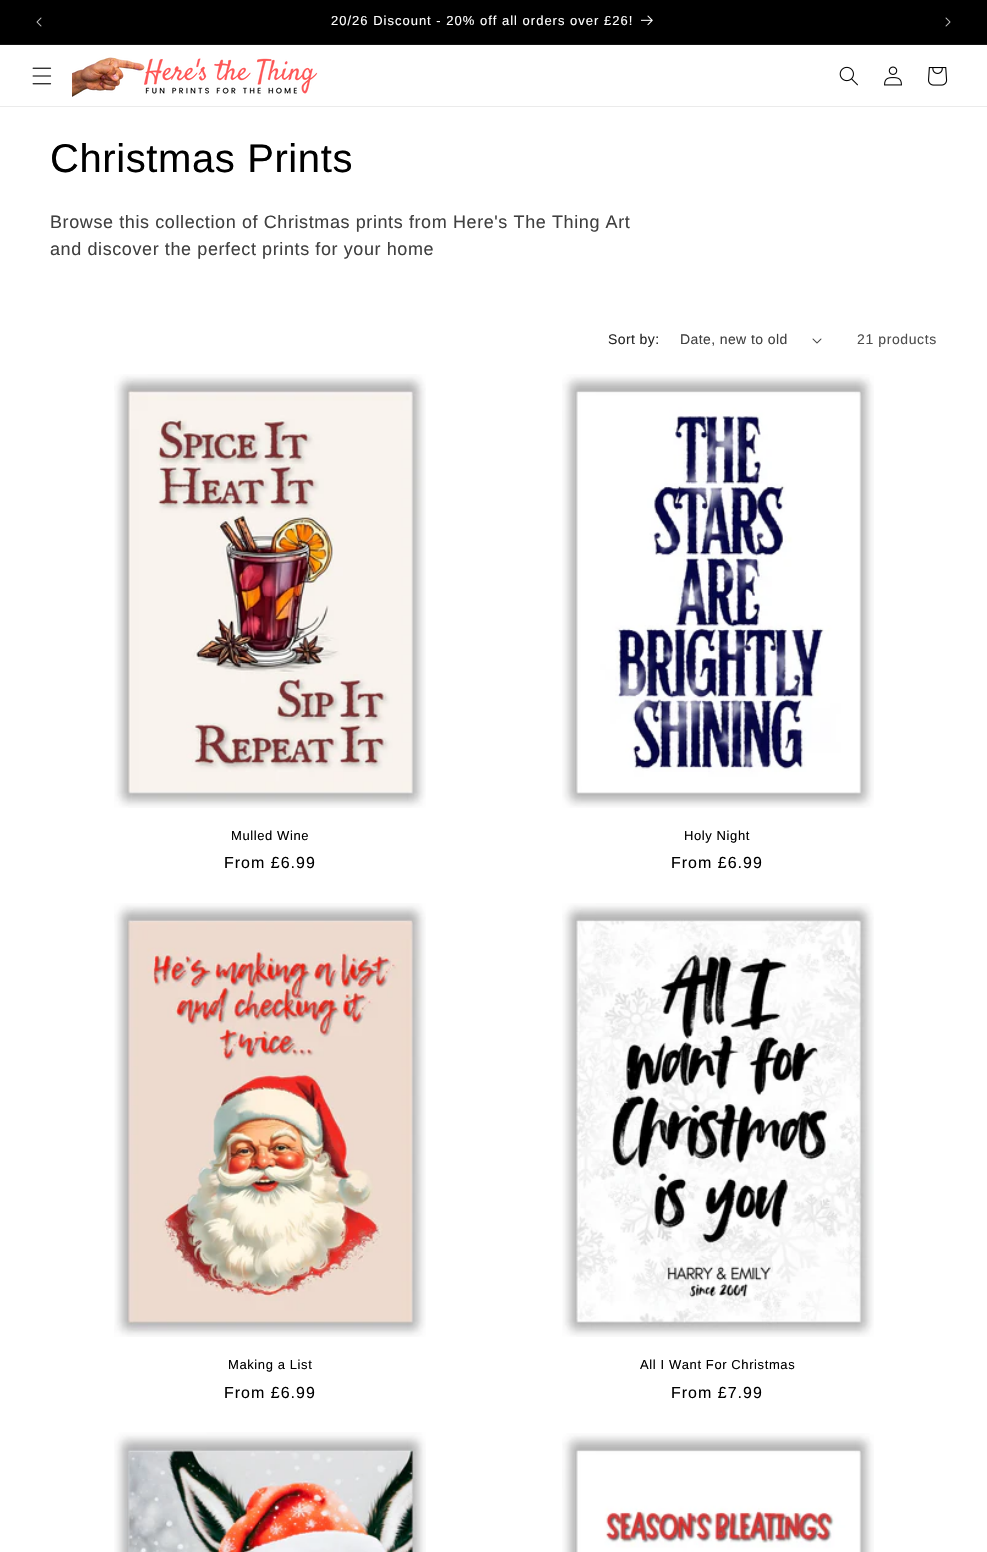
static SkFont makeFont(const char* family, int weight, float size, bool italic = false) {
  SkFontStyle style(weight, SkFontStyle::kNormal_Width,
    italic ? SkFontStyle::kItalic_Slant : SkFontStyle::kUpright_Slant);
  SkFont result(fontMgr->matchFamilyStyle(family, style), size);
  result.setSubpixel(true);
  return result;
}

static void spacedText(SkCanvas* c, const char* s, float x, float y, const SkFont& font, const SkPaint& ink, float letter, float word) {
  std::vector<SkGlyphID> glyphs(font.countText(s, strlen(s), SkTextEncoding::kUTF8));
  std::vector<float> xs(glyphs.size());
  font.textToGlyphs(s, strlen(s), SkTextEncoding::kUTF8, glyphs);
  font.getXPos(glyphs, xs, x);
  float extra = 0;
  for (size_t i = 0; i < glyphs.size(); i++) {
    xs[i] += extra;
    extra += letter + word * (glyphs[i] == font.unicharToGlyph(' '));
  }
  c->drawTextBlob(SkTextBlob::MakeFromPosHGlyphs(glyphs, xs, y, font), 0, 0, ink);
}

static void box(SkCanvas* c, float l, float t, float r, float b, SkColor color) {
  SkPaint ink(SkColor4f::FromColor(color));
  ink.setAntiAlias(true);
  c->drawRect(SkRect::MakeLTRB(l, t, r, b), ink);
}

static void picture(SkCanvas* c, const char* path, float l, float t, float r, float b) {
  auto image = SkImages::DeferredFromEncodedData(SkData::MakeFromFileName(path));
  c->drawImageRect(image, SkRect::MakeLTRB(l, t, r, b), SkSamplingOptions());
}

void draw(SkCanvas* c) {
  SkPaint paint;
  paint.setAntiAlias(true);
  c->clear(0xffffffff);
  box(c, 0, 0, 987, 44, 0xff000000);
  box(c, 0, 44, 987, 45, 0xff141414);
  picture(c, "img_01.png", 36, 17, 42, 27);
  SkFont face1 = makeFont("Liberation Sans", 400, 13);
  paint.setColor(0xffffffff);
  spacedText(c, "20/26 Discount - 20% off all orders over £26!", 331, 25, face1, paint, 1, 0);
  picture(c, "img_02.png", 641, 15, 653, 26);
  picture(c, "img_03.png", 945, 17, 951, 27);
  box(c, 0, 106, 987, 107, 0xffebebeb);
  picture(c, "img_04.png", 32, 67, 52, 85);
  picture(c, "img_05.png", 72, 57, 318, 97);
  picture(c, "img_06.png", 839, 66, 858, 86);
  picture(c, "img_07.png", 884, 66, 902, 86);
  picture(c, "img_08.png", 928, 67, 948, 86);
  SkFont face2 = makeFont("Liberation Sans", 400, 40);
  paint.setColor(0xff000000);
  spacedText(c, "Christmas Prints", 50, 172, face2, paint, 0.6f, 0);
  SkFont face3 = makeFont("Liberation Sans", 400, 18);
  paint.setColor(0xff404040);
  spacedText(c, "Browse this collection of Christmas prints from Here's The Thing Art", 50, 228, face3, paint, 0.6f, 0);
  spacedText(c, "and discover the perfect prints for your home", 50, 255, face3, paint, 0.6f, 0);
  SkFont face4 = makeFont("Liberation Sans", 400, 14);
  paint.setColor(0xff262626);
  spacedText(c, "Sort by:", 608, 344, face4, paint, 0.4f, 0);
  paint.setColor(0xff404040);
  spacedText(c, "Date, new to old", 680, 344, face4, paint, 0.4f, 0);
  picture(c, "img_09.png", 812, 338, 822, 344);
  paint.setColor(0xff4d4d4d);
  spacedText(c, "21 products", 857, 344, face4, paint, 0.6f, 0);
  picture(c, "img_10.png", 114, 374, 426, 808);
  paint.setColor(0xff000000);
  spacedText(c, "Mulled Wine", 231, 840, face1, paint, 0.6f, 0);
  SkFont face5 = makeFont("Liberation Sans", 400, 16);
  spacedText(c, "From £6.99", 224, 868, face5, paint, 1, 0);
  picture(c, "img_11.png", 562, 374, 874, 808);
  spacedText(c, "Holy Night", 684, 840, face1, paint, 0.6f, 0);
  spacedText(c, "From £6.99", 671, 868, face5, paint, 1, 0);
  picture(c, "img_12.png", 114, 903, 426, 1337);
  spacedText(c, "Making a List", 228, 1369, face1, paint, 0.6f, 0);
  spacedText(c, "From £6.99", 224, 1398, face5, paint, 1, 0);
  picture(c, "img_13.png", 562, 903, 874, 1337);
  spacedText(c, "All I Want For Christmas", 640, 1369, face1, paint, 0.6f, 0);
  spacedText(c, "From £7.99", 671, 1398, face5, paint, 1, 0);
  picture(c, "img_14.png", 114, 1432, 426, 1552);
  picture(c, "img_15.png", 562, 1433, 874, 1552);
}
